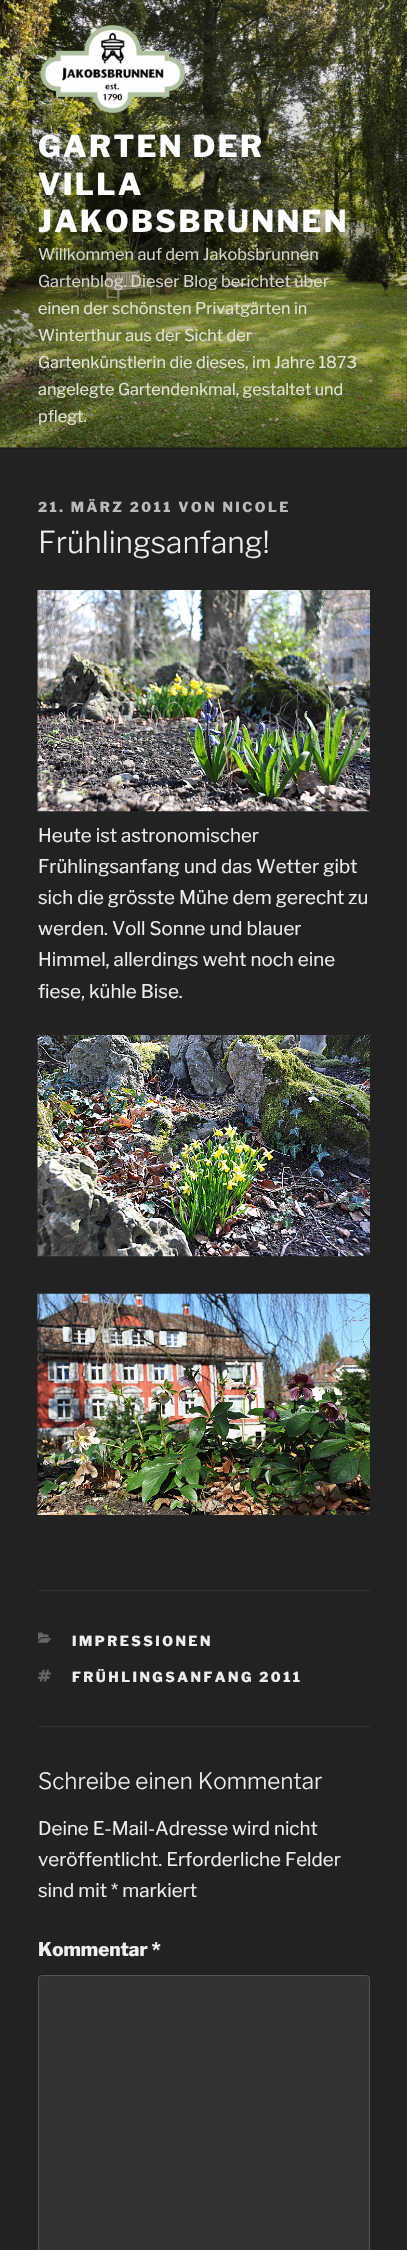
static SkFont makeFont(const char* family, int weight, float size, bool italic = false) {
  SkFontStyle style(weight, SkFontStyle::kNormal_Width,
    italic ? SkFontStyle::kItalic_Slant : SkFontStyle::kUpright_Slant);
  SkFont result(fontMgr->matchFamilyStyle(family, style), size);
  result.setSubpixel(true);
  return result;
}

static void text(SkCanvas* c, const char* s, float x, float y, const SkFont& font, SkColor color) {
  SkPaint ink(SkColor4f::FromColor(color));
  ink.setAntiAlias(true);
  c->drawString(s, x, y, font, ink);
}

static void spacedText(SkCanvas* c, const char* s, float x, float y, const SkFont& font, const SkPaint& ink, float letter, float word) {
  std::vector<SkGlyphID> glyphs(font.countText(s, strlen(s), SkTextEncoding::kUTF8));
  std::vector<float> xs(glyphs.size());
  font.textToGlyphs(s, strlen(s), SkTextEncoding::kUTF8, glyphs);
  font.getXPos(glyphs, xs, x);
  float extra = 0;
  for (size_t i = 0; i < glyphs.size(); i++) {
    xs[i] += extra;
    extra += letter + word * (glyphs[i] == font.unicharToGlyph(' '));
  }
  c->drawTextBlob(SkTextBlob::MakeFromPosHGlyphs(glyphs, xs, y, font), 0, 0, ink);
}

static void box(SkCanvas* c, float l, float t, float r, float b, SkColor color) {
  SkPaint ink(SkColor4f::FromColor(color));
  ink.setAntiAlias(true);
  c->drawRect(SkRect::MakeLTRB(l, t, r, b), ink);
}

static void picture(SkCanvas* c, const char* path, float l, float t, float r, float b) {
  auto image = SkImages::DeferredFromEncodedData(SkData::MakeFromFileName(path));
  c->drawImageRect(image, SkRect::MakeLTRB(l, t, r, b), SkSamplingOptions());
}

void draw(SkCanvas* c) {
  SkPaint paint;
  paint.setAntiAlias(true);
  c->clear(0xff222222);
  box(c, 0, 447, 407, 449, 0xff262626);
  picture(c, "img_01.png", 0, 0, 407, 448);
  {
    const SkColor colors[] = {0x00000000, 0x4d000000, 0x4d000000};
    const float stops[] = {0, 0.75f, 1};
    const SkPoint ends[] = {{204, 0}, {204, 449}};
    paint.setShader(SkGradientShader::MakeLinear(ends, colors, stops, 3, SkTileMode::kClamp));
    paint.setAlpha(255);
  }
  c->drawRect(SkRect::MakeLTRB(0, 24, 407, 449), paint);
  picture(c, "img_02.png", 40, 24, 186, 114);
  SkFont face1 = makeFont("Libre Franklin", 100, 30);
  paint.setShader(nullptr);
  paint.setColor(0xffffffff);
  spacedText(c, "GARTEN DER", 38, 157, face1, paint, 2.4f, 0);
  spacedText(c, "VILLA", 38, 195, face1, paint, 2.4f, 0);
  spacedText(c, "JAKOBSBRUNNEN", 38, 232, face1, paint, 2.4f, 0);
  SkFont face2 = makeFont("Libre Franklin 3", 100, 16.25f);
  text(c, "Willkommen auf dem Jakobsbrunnen", 38, 260, face2, 0xffd6d7d1);
  text(c, "Gartenblog. Dieser Blog berichtet über", 38, 287, face2, 0xffd6d7d1);
  text(c, "einen der schönsten Privatgärten in", 38, 314, face2, 0xffe2e4d6);
  text(c, "Winterthur aus der Sicht der", 38, 341, face2, 0xffe2e4d6);
  text(c, "Gartenkünstlerin die dieses, im Jahre 1873", 38, 368, face2, 0xffe2e4d6);
  text(c, "angelegte Gartendenkmal, gestaltet und", 38, 395, face2, 0xffe2e4d6);
  text(c, "pflegt.", 38, 422, face2, 0xffe2e4d6);
  SkFont face3 = makeFont("Libre Franklin", 100, 13.75f);
  paint.setColor(0xffbbbbbb);
  spacedText(c, "21. MÄRZ 2011 VON NICOLE", 38, 512, face3, paint, 2.5f, 0);
  SkFont face4 = makeFont("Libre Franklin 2", 100, 30);
  text(c, "Frühlingsanfang!", 38, 553, face4, 0xffeeeeee);
  picture(c, "img_03.png", 37, 590, 370, 812);
  SkFont face5 = makeFont("Libre Franklin 3", 100, 18.75f);
  text(c, "Heute ist astronomischer", 38, 842, face5, 0xffeeeeee);
  text(c, "Frühlingsanfang und das Wetter gibt", 38, 873, face5, 0xffeeeeee);
  text(c, "sich die grösste Mühe dem gerecht zu", 38, 904, face5, 0xffeeeeee);
  text(c, "werden. Voll Sonne und blauer", 38, 935, face5, 0xffeeeeee);
  text(c, "Himmel, allerdings weht noch eine", 38, 966, face5, 0xffeeeeee);
  text(c, "fiese, kühle Bise.", 38, 998, face5, 0xffeeeeee);
  picture(c, "img_04.png", 37, 1035, 370, 1257);
  picture(c, "img_05.png", 37, 1293, 370, 1515);
  box(c, 38, 1590, 370, 1591, 0xff333333);
  box(c, 38, 1726, 370, 1727, 0xff333333);
  picture(c, "img_06.png", 38, 1632, 51, 1643);
  paint.setColor(0xffeeeeee);
  spacedText(c, "IMPRESSIONEN", 72, 1646, face3, paint, 2.5f, 0);
  picture(c, "img_07.png", 38, 1669, 51, 1682);
  spacedText(c, "FRÜHLINGSANFANG 2011", 72, 1682, face3, paint, 2.5f, 0);
  SkFont face6 = makeFont("Libre Franklin 2", 100, 22.5f);
  text(c, "Schreibe einen Kommentar", 38, 1789, face6, 0xffeeeeee);
  text(c, "Deine E-Mail-Adresse wird nicht", 38, 1835, face5, 0xffeeeeee);
  text(c, "veröffentlicht. Erforderliche Felder", 38, 1866, face5, 0xffeeeeee);
  text(c, "sind mit * markiert", 38, 1897, face5, 0xffeeeeee);
  SkFont face7 = makeFont("Libre Franklin", 100, 18.75f);
  text(c, "Kommentar *", 38, 1956, face7, 0xffeeeeee);
  paint.setColor(0xff333333);
  c->drawRoundRect(SkRect::MakeLTRB(38.5f, 1975.5f, 369.5f, 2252.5f), 3.5f, 3.5f, paint);
  paint.setStyle(SkPaint::kStroke_Style);
  paint.setStrokeWidth(1);
  paint.setColor(0xff555555);
  c->drawRoundRect(SkRect::MakeLTRB(38.5f, 1975.5f, 369.5f, 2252.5f), 3.5f, 3.5f, paint);
}
